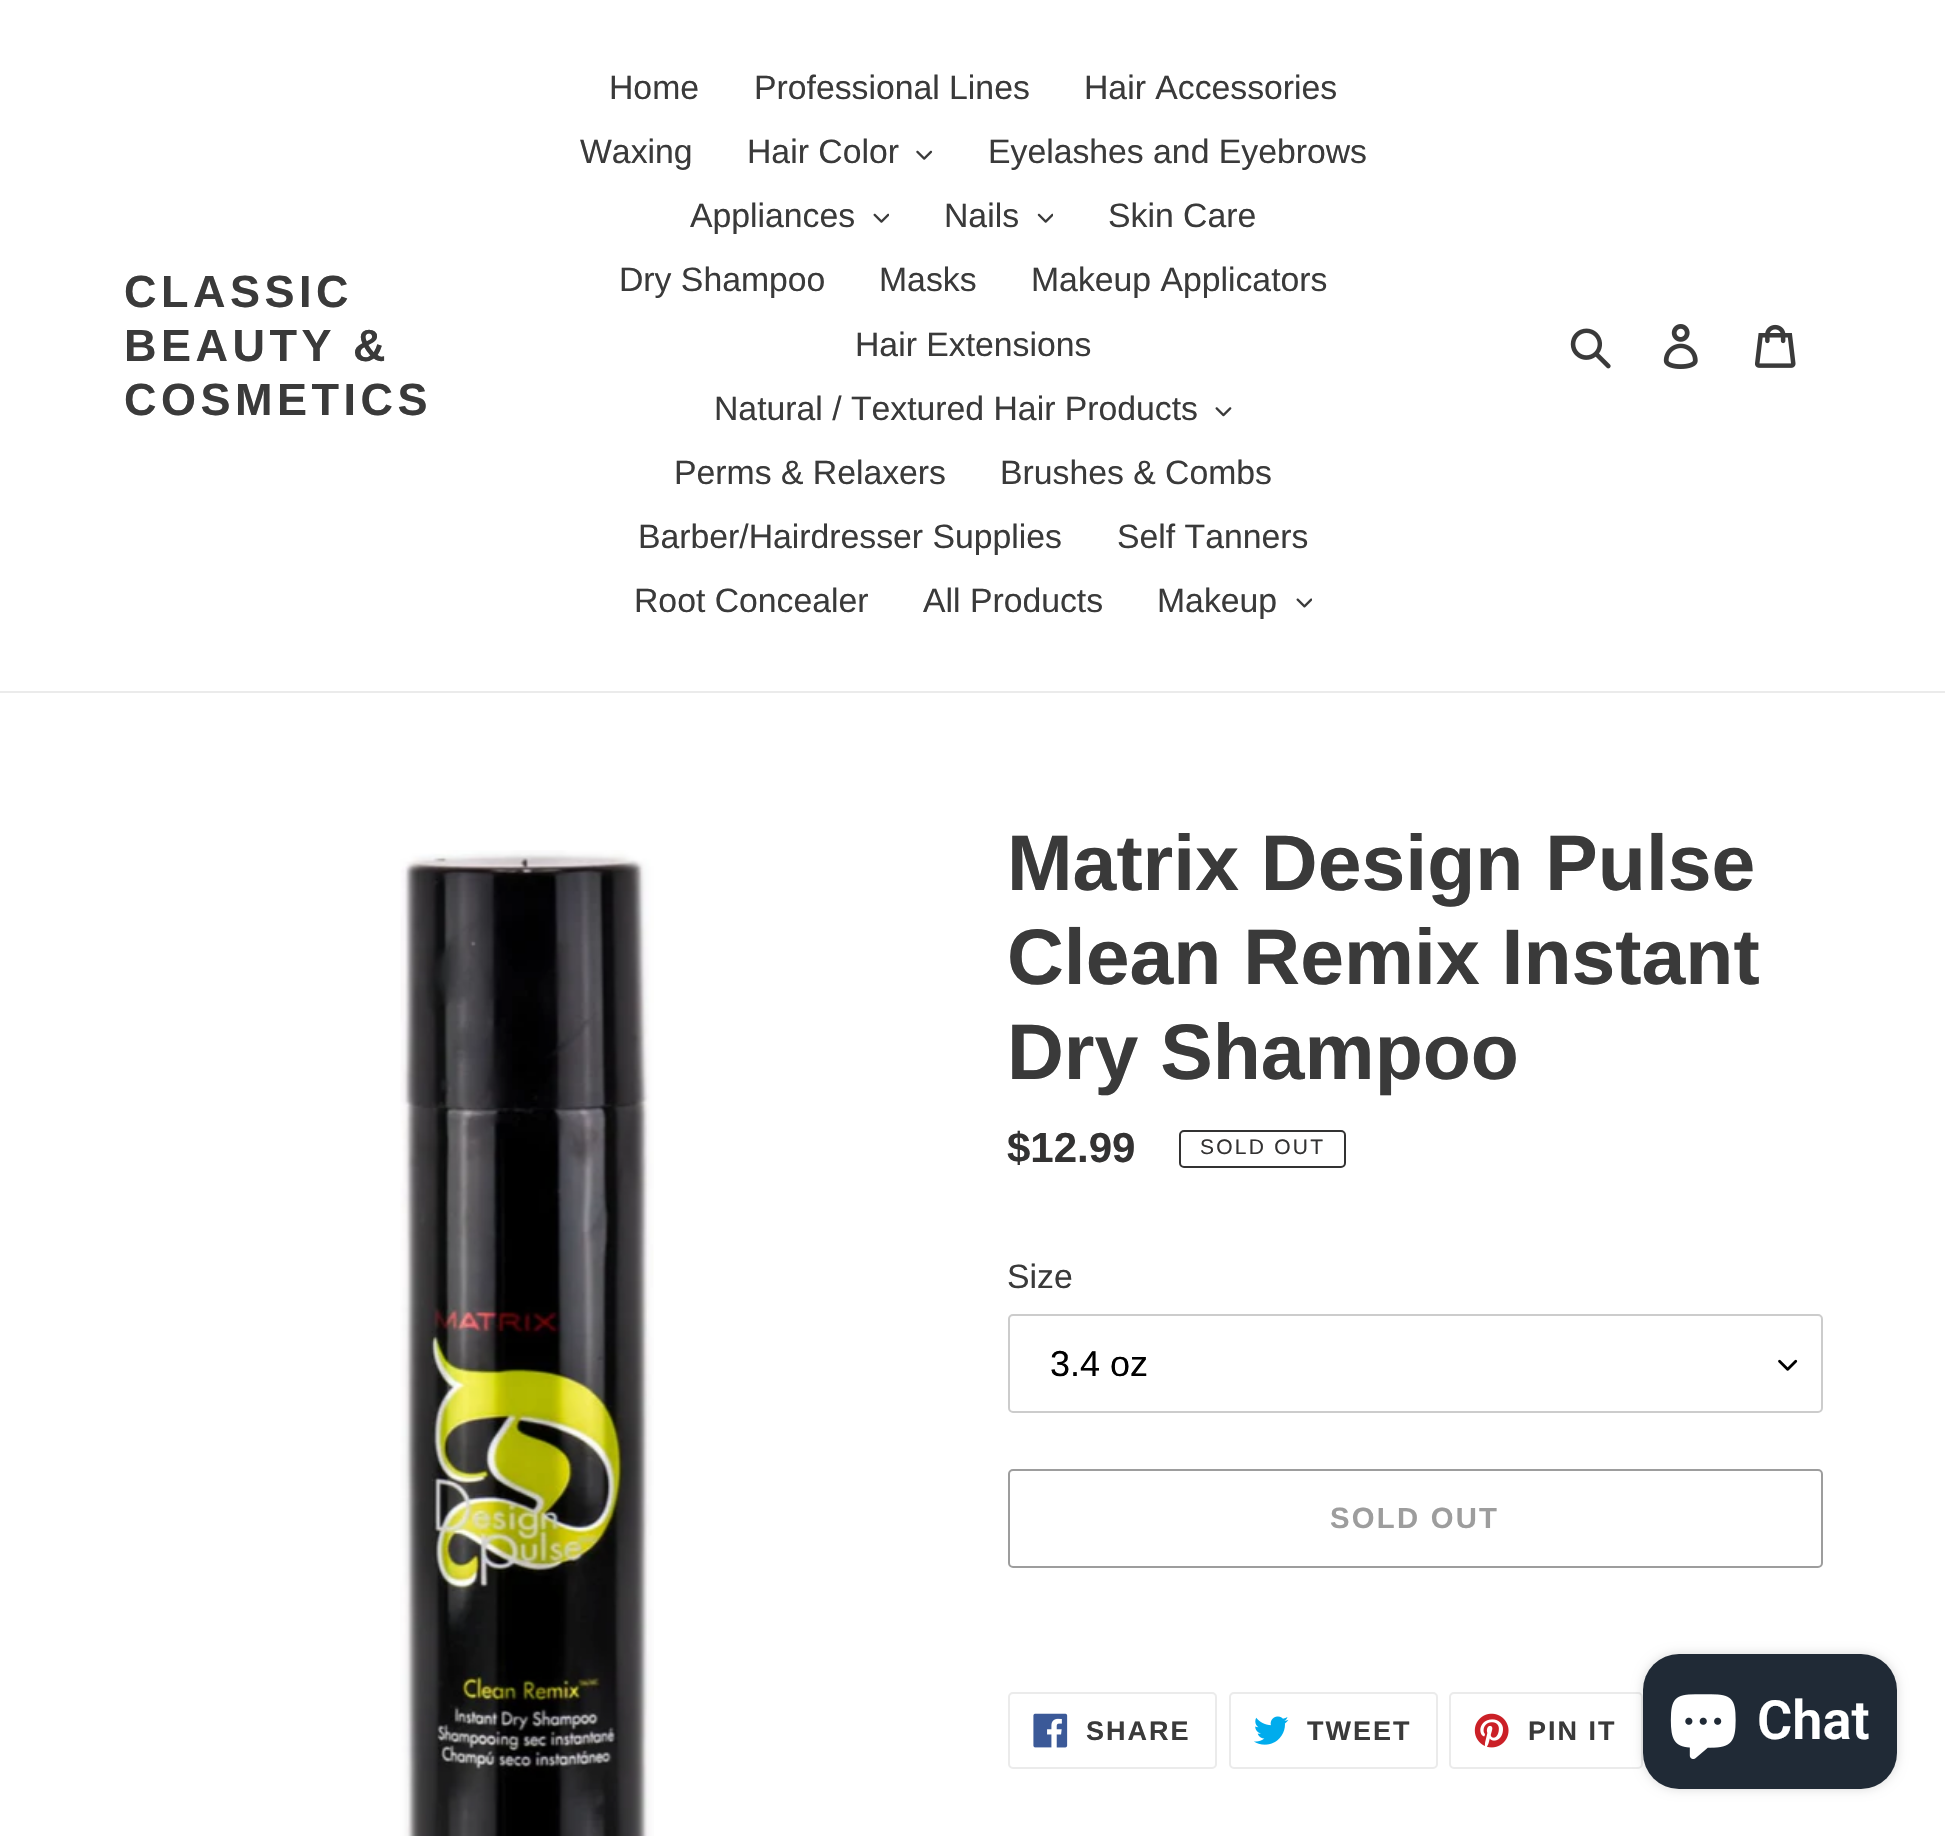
static SkFont makeFont(const char* family, int weight, float size, bool italic = false) {
  SkFontStyle style(weight, SkFontStyle::kNormal_Width,
    italic ? SkFontStyle::kItalic_Slant : SkFontStyle::kUpright_Slant);
  SkFont result(fontMgr->matchFamilyStyle(family, style), size);
  result.setSubpixel(true);
  return result;
}

static void text(SkCanvas* c, const char* s, float x, float y, const SkFont& font, SkColor color) {
  SkPaint ink(SkColor4f::FromColor(color));
  ink.setAntiAlias(true);
  c->drawString(s, x, y, font, ink);
}

static void spacedText(SkCanvas* c, const char* s, float x, float y, const SkFont& font, const SkPaint& ink, float letter, float word) {
  std::vector<SkGlyphID> glyphs(font.countText(s, strlen(s), SkTextEncoding::kUTF8));
  std::vector<float> xs(glyphs.size());
  font.textToGlyphs(s, strlen(s), SkTextEncoding::kUTF8, glyphs);
  font.getXPos(glyphs, xs, x);
  float extra = 0;
  for (size_t i = 0; i < glyphs.size(); i++) {
    xs[i] += extra;
    extra += letter + word * (glyphs[i] == font.unicharToGlyph(' '));
  }
  c->drawTextBlob(SkTextBlob::MakeFromPosHGlyphs(glyphs, xs, y, font), 0, 0, ink);
}

static void box(SkCanvas* c, float l, float t, float r, float b, SkColor color) {
  SkPaint ink(SkColor4f::FromColor(color));
  ink.setAntiAlias(true);
  c->drawRect(SkRect::MakeLTRB(l, t, r, b), ink);
}

static void roundBox(SkCanvas* c, float l, float t, float r, float b, float radius, SkColor color) {
  SkPaint ink(SkColor4f::FromColor(color));
  ink.setAntiAlias(true);
  c->drawRoundRect(SkRect::MakeLTRB(l, t, r, b), radius, radius, ink);
}

static void picture(SkCanvas* c, const char* path, float l, float t, float r, float b) {
  auto image = SkImages::DeferredFromEncodedData(SkData::MakeFromFileName(path));
  c->drawImageRect(image, SkRect::MakeLTRB(l, t, r, b), SkSamplingOptions());
}

void draw(SkCanvas* c) {
  SkPaint paint;
  paint.setAntiAlias(true);
  c->clear(0xffffffff);
  box(c, 0, 691, 1945, 693, 0xffebebeb);
  SkFont face1 = makeFont("Liberation Sans", 700, 45);
  paint.setColor(0xff3a3a3a);
  spacedText(c, "CLASSIC", 124, 307, face1, paint, 4.5f, 0);
  spacedText(c, "BEAUTY &", 124, 361, face1, paint, 4.5f, 0);
  spacedText(c, "COSMETICS", 124, 415, face1, paint, 4.5f, 0);
  SkFont face2 = makeFont("Liberation Sans", 400, 33.75f);
  text(c, "Home", 609, 99, face2, 0xff3a3a3a);
  text(c, "Professional Lines", 754, 99, face2, 0xff3a3a3a);
  text(c, "Hair Accessories", 1084, 99, face2, 0xff3a3a3a);
  text(c, "Waxing", 580, 163, face2, 0xff3a3a3a);
  text(c, "Hair Color", 747, 163, face2, 0xff3a3a3a);
  picture(c, "img_01.png", 916, 150, 933, 160);
  text(c, "Eyelashes and Eyebrows", 988, 163, face2, 0xff3a3a3a);
  text(c, "Appliances", 690, 227, face2, 0xff3a3a3a);
  picture(c, "img_02.png", 873, 213, 889, 223);
  text(c, "Nails", 944, 227, face2, 0xff3a3a3a);
  picture(c, "img_03.png", 1037, 213, 1053, 223);
  text(c, "Skin Care", 1108, 227, face2, 0xff3a3a3a);
  text(c, "Dry Shampoo", 619, 291, face2, 0xff3a3a3a);
  text(c, "Masks", 879, 291, face2, 0xff3a3a3a);
  text(c, "Makeup Applicators", 1031, 291, face2, 0xff3a3a3a);
  text(c, "Hair Extensions", 855, 356, face2, 0xff3a3a3a);
  text(c, "Natural / Textured Hair Products", 714, 420, face2, 0xff3a3a3a);
  picture(c, "img_04.png", 1215, 407, 1232, 417);
  text(c, "Perms & Relaxers", 674, 484, face2, 0xff3a3a3a);
  text(c, "Brushes & Combs", 1000, 484, face2, 0xff3a3a3a);
  text(c, "Barber/Hairdresser Supplies", 638, 548, face2, 0xff3a3a3a);
  text(c, "Self Tanners", 1117, 548, face2, 0xff3a3a3a);
  text(c, "Root Concealer", 634, 612, face2, 0xff3a3a3a);
  text(c, "All Products", 923, 612, face2, 0xff3a3a3a);
  text(c, "Makeup", 1157, 612, face2, 0xff3a3a3a);
  picture(c, "img_05.png", 1296, 598, 1312, 608);
  picture(c, "img_06.png", 1570, 328, 1611, 369);
  picture(c, "img_07.png", 1663, 324, 1698, 369);
  picture(c, "img_08.png", 1755, 324, 1796, 368);
  picture(c, "img_09.png", 400, 850, 654, 1836);
  SkFont face3 = makeFont("Liberation Sans", 700, 78.75f);
  text(c, "Matrix Design Pulse", 1007, 890, face3, 0xff3a3a3a);
  text(c, "Clean Remix Instant", 1007, 984, face3, 0xff3a3a3a);
  text(c, "Dry Shampoo", 1007, 1079, face3, 0xff3a3a3a);
  SkFont face4 = makeFont("Liberation Sans", 700, 42);
  text(c, "$12.99", 1007, 1162, face4, 0xff333232);
  paint.setStyle(SkPaint::kStroke_Style);
  paint.setStrokeWidth(2);
  paint.setColor(0xff333232);
  c->drawRoundRect(SkRect::MakeLTRB(1180, 1131, 1345, 1167), 4, 4, paint);
  SkFont face5 = makeFont("Liberation Sans", 400, 21);
  paint.setStyle(SkPaint::kFill_Style);
  spacedText(c, "SOLD OUT", 1200, 1154, face5, paint, 2.25f, 0);
  text(c, "Size", 1007, 1288, face2, 0xff3a3a3a);
  picture(c, "img_10.png", 1778, 1359, 1798, 1371);
  paint.setStyle(SkPaint::kStroke_Style);
  paint.setColor(0xffcccccc);
  c->drawRoundRect(SkRect::MakeLTRB(1009, 1315, 1822, 1412), 4, 4, paint);
  SkFont face6 = makeFont("Liberation Sans", 400, 36);
  text(c, "3.4 oz", 1050, 1376, face6, 0xff000000);
  paint.setColor(0xff9d9d9d);
  c->drawRoundRect(SkRect::MakeLTRB(1009, 1470, 1822, 1567), 4, 4, paint);
  SkFont face7 = makeFont("Liberation Sans", 700, 29.25f);
  paint.setStyle(SkPaint::kFill_Style);
  spacedText(c, "SOLD OUT", 1330, 1528, face7, paint, 2.25f, 0);
  paint.setStyle(SkPaint::kStroke_Style);
  paint.setColor(0xffebebeb);
  c->drawRoundRect(SkRect::MakeLTRB(1009, 1693, 1216, 1768), 4, 4, paint);
  picture(c, "img_11.png", 1033, 1713, 1068, 1748);
  SkFont face8 = makeFont("Liberation Sans", 700, 27);
  paint.setStyle(SkPaint::kFill_Style);
  paint.setColor(0xff3a3a3a);
  spacedText(c, "SHARE", 1086, 1740, face8, paint, 2, 0);
  paint.setStyle(SkPaint::kStroke_Style);
  paint.setColor(0xffebebeb);
  c->drawRoundRect(SkRect::MakeLTRB(1230, 1693, 1437, 1768), 4, 4, paint);
  picture(c, "img_12.png", 1254, 1716, 1289, 1745);
  paint.setStyle(SkPaint::kFill_Style);
  paint.setColor(0xff3a3a3a);
  spacedText(c, "TWEET", 1307, 1740, face8, paint, 2, 0);
  paint.setStyle(SkPaint::kStroke_Style);
  paint.setColor(0xffebebeb);
  c->drawRoundRect(SkRect::MakeLTRB(1450, 1693, 1642, 1768), 4, 4, paint);
  picture(c, "img_13.png", 1474, 1713, 1509, 1748);
  paint.setStyle(SkPaint::kFill_Style);
  paint.setColor(0xff3a3a3a);
  spacedText(c, "PIN IT", 1528, 1740, face8, paint, 2, 0);
  paint.setColor(0x26000000);
  paint.setMaskFilter(SkMaskFilter::MakeBlur(kNormal_SkBlurStyle, 5.5f));
  c->drawRoundRect(SkRect::MakeLTRB(1643, 1654, 1897, 1789), 36, 36, paint);
  paint.setMaskFilter(nullptr);
  roundBox(c, 1643, 1654, 1897, 1789, 36, 0xff202a36);
  picture(c, "img_14.png", 1670, 1694, 1736, 1759);
  SkFont face9 = makeFont("Roboto", 600, 54);
  text(c, "Chat", 1757, 1739, face9, 0xffffffff);
}
